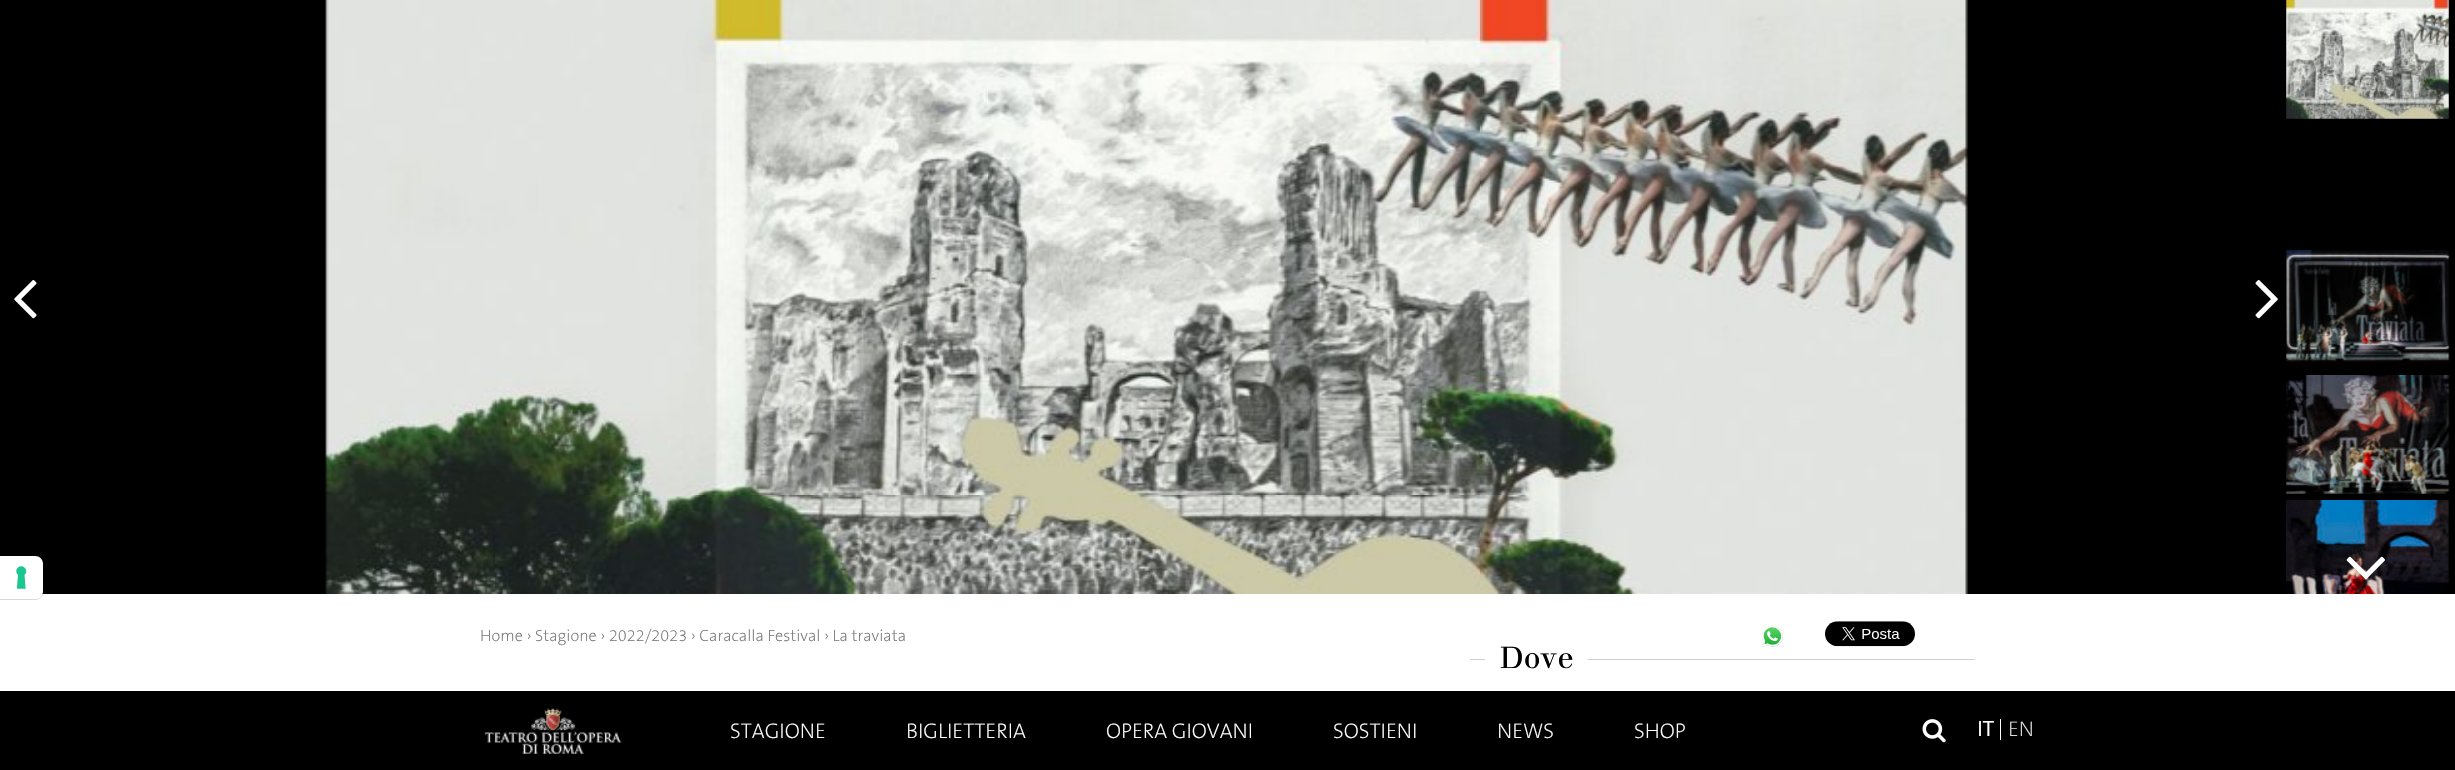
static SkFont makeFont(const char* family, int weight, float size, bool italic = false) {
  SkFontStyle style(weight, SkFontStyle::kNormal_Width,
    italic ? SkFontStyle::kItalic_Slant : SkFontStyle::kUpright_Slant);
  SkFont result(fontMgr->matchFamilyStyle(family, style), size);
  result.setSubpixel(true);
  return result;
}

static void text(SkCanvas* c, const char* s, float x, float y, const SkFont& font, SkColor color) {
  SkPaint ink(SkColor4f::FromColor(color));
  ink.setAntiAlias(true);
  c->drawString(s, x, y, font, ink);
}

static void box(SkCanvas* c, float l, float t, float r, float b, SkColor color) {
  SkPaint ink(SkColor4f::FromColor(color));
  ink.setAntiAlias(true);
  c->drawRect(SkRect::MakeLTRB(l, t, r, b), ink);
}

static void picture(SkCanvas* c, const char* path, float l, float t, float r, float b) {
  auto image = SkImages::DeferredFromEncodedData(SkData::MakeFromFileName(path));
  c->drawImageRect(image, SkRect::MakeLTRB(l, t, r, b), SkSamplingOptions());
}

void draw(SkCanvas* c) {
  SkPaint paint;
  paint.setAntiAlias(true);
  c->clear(0xffffffff);
  box(c, 0, 0, 2455, 594, 0xff000000);
  paint.setStyle(SkPaint::kStroke_Style);
  paint.setStrokeWidth(1);
  paint.setColor(0x26000000);
  c->drawPath(SkPathBuilder().moveTo(-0.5f, 555.5f).lineTo(35, 555.5f).cubicTo(39.5f, 555.5f, 43.5f, 559.5f, 43.5f, 564).lineTo(43.5f, 591).cubicTo(43.5f, 595.5f, 39.5f, 599.5f, 35, 599.5f).lineTo(-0.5f, 599.5f).close().detach(), paint);
  paint.setStyle(SkPaint::kFill_Style);
  paint.setColor(0xffffffff);
  c->drawPath(SkPathBuilder().moveTo(0, 556).lineTo(35, 556).cubicTo(39.5f, 556, 43, 559.5f, 43, 564).lineTo(43, 591).cubicTo(43, 595.5f, 39.5f, 599, 35, 599).lineTo(0, 599).close().detach(), paint);
  picture(c, "img_01.png", 16, 566, 27, 589);
  SkFont face1 = makeFont("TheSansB", 200, 16.25f);
  text(c, "Home › Stagione › 2022/2023 › Caracalla Festival › La traviata", 480, 641, face1, 0xff787878);
  picture(c, "img_02.png", 1762, 625, 1783, 647);
  picture(c, "img_03.png", 1825, 621, 1915, 647);
  box(c, 1470, 659, 1975, 660, 0xffcfcfcf);
  box(c, 1485, 659, 1588, 660, 0xffffffff);
  SkFont face2 = makeFont("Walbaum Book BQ", 400, 30);
  text(c, "Dove", 1500, 668, face2, 0xff000000);
  picture(c, "img_04.png", 325, 0, 1968, 594);
  picture(c, "img_05.png", 14, 280, 37, 319);
  picture(c, "img_06.png", 2255, 280, 2278, 319);
  picture(c, "img_07.png", 2286, 0, 2449, 119);
  picture(c, "img_08.png", 2286, 250, 2450, 369);
  picture(c, "img_09.png", 2286, 375, 2450, 494);
  picture(c, "img_10.png", 2286, 500, 2449, 594);
  picture(c, "img_11.png", 2346, 556, 2385, 580);
  box(c, 0, 691, 2455, 770, 0xff000000);
  picture(c, "img_12.png", 484, 708, 622, 754);
  SkFont face3 = makeFont("TheSansB", 200, 21.25f);
  text(c, "STAGIONE", 730, 738, face3, 0xffffffff);
  text(c, "BIGLIETTERIA", 906, 738, face3, 0xffffffff);
  text(c, "OPERA GIOVANI", 1106, 738, face3, 0xffffffff);
  text(c, "SOSTIENI", 1333, 738, face3, 0xffffffff);
  text(c, "NEWS", 1497, 738, face3, 0xffffffff);
  text(c, "SHOP", 1634, 738, face3, 0xffffffff);
  picture(c, "img_13.png", 1922, 719, 1946, 743);
  box(c, 2000, 719, 2001, 740, 0xffffffff);
  SkFont face4 = makeFont("TheSansB", 700, 21.25f);
  text(c, "IT", 1977, 736, face4, 0xffffffff);
  text(c, "EN", 2008, 736, face3, 0xffdadada);
}
